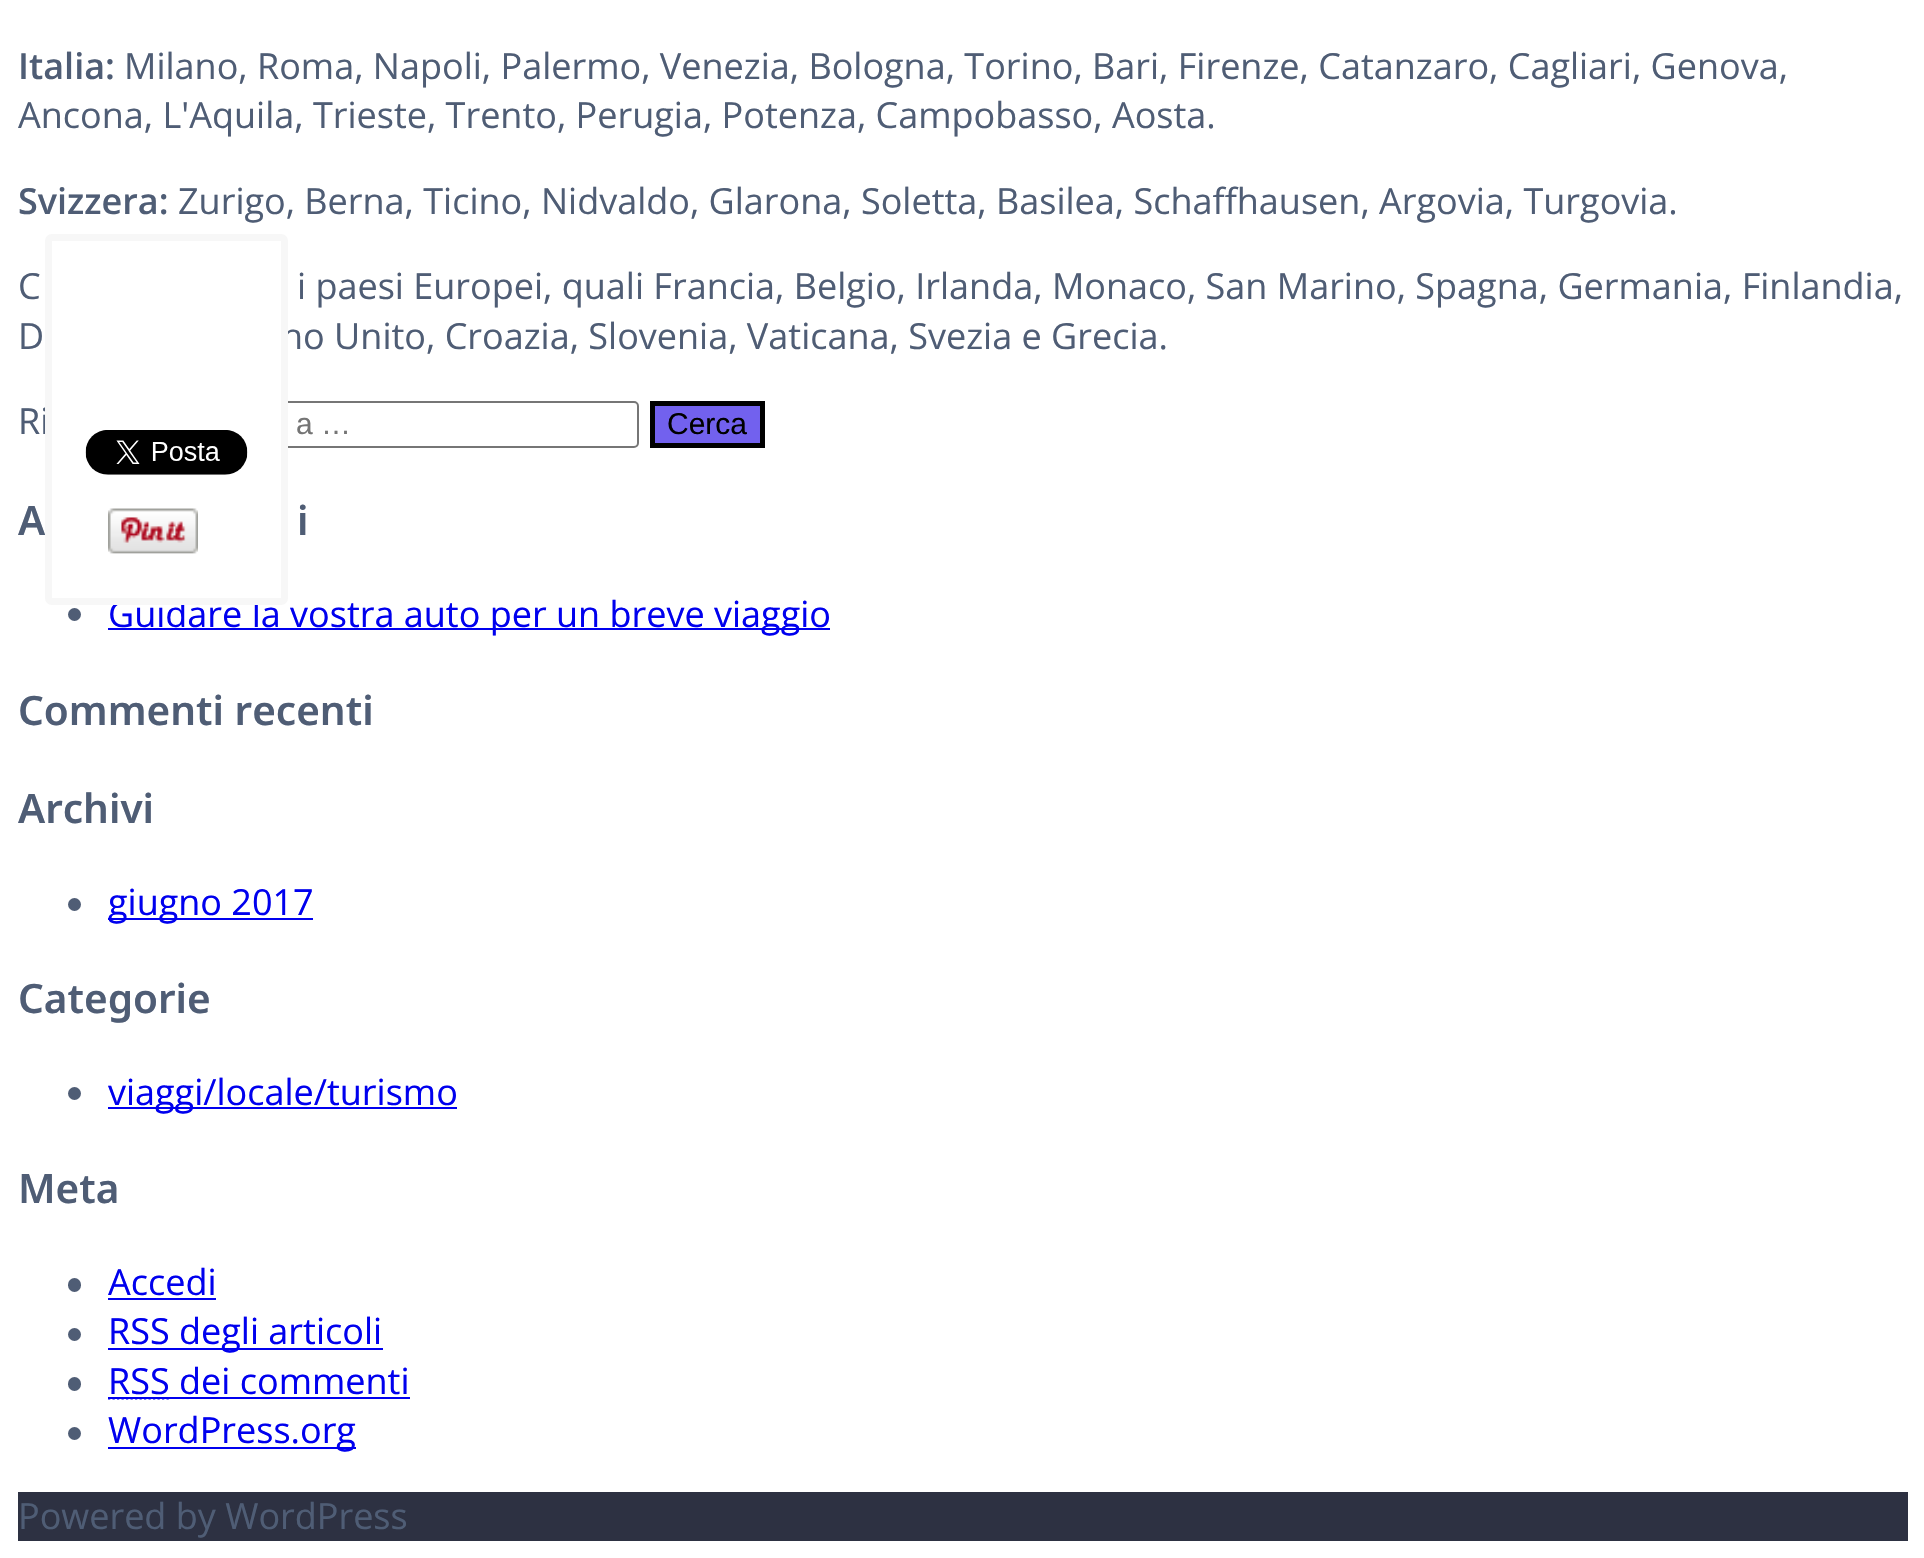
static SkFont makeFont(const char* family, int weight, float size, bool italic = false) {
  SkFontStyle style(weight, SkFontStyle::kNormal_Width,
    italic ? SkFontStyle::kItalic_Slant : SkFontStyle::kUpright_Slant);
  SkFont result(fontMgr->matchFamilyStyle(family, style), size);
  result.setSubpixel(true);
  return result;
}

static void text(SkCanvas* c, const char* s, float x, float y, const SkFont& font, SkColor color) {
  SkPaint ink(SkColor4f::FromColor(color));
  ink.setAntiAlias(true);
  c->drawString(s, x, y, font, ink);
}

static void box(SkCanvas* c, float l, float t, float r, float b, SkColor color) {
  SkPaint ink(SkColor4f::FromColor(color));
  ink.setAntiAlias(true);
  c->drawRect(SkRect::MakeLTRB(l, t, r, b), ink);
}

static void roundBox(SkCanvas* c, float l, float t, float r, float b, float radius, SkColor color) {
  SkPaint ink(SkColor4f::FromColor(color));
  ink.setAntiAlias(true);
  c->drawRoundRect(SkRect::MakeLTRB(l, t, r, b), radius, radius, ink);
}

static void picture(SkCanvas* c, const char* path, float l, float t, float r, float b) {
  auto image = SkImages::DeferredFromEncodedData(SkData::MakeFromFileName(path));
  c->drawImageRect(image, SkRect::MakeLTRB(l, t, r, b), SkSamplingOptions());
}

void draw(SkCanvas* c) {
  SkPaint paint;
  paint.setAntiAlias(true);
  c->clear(0xffffffff);
  SkFont face1 = makeFont("Open Sans", 600, 36);
  text(c, "Italia:", 18, 79, face1, 0xff4f5d75);
  SkFont face2 = makeFont("Open Sans", 400, 36);
  text(c, "Milano, Roma, Napoli, Palermo, Venezia, Bologna, Torino, Bari, Firenze, Catanzaro, Cagliari, Genova,", 124, 79, face2, 0xff4f5d75);
  text(c, "Ancona, L'Aquila, Trieste, Trento, Perugia, Potenza, Campobasso, Aosta.", 18, 128, face2, 0xff4f5d75);
  text(c, "Svizzera:", 18, 214, face1, 0xff4f5d75);
  text(c, "Zurigo, Berna, Ticino, Nidvaldo, Glarona, Soletta, Basilea, Schaffhausen, Argovia, Turgovia.", 178, 214, face2, 0xff4f5d75);
  text(c, "C", 18, 299, face2, 0xff4f5d75);
  text(c, "i paesi Europei, quali Francia, Belgio, Irlanda, Monaco, San Marino, Spagna, Germania, Finlandia,", 297, 299, face2, 0xff4f5d75);
  text(c, "D", 18, 349, face2, 0xff4f5d75);
  text(c, "no Unito, Croazia, Slovenia, Vaticana, Svezia e Grecia.", 281, 349, face2, 0xff4f5d75);
  text(c, "Ri", 18, 434, face2, 0xff4f5d75);
  paint.setStyle(SkPaint::kStroke_Style);
  paint.setStrokeWidth(2);
  paint.setColor(0xff767676);
  c->drawRoundRect(SkRect::MakeLTRB(224, 402, 638, 447), 4, 4, paint);
  SkFont face3 = makeFont("Liberation Sans", 400, 30);
  text(c, "a …", 296, 434, face3, 0xff757575);
  paint.setStyle(SkPaint::kFill_Style);
  paint.setColor(0xff7261ee);
  c->drawRect(SkRect::MakeLTRB(652.5f, 403.5f, 762.5f, 445.5f), paint);
  paint.setStyle(SkPaint::kStroke_Style);
  paint.setStrokeWidth(5);
  paint.setColor(0xff000000);
  c->drawRect(SkRect::MakeLTRB(652.5f, 403.5f, 762.5f, 445.5f), paint);
  text(c, "Cerca", 667, 434, face3, 0xff000000);
  SkFont face4 = makeFont("Noto Sans", 600, 40.5f);
  text(c, "A", 18, 535, face4, 0xff4f5d75);
  text(c, "i", 297, 535, face4, 0xff4f5d75);
  paint.setStyle(SkPaint::kFill_Style);
  paint.setColor(0xff4f5d75);
  c->drawCircle(74.5f, 614.5f, 6.5f, paint);
  box(c, 108, 628, 830, 630, 0xff0000ee);
  text(c, "Guidare la vostra auto per un breve viaggio", 108, 627, face2, 0xff0000ee);
  text(c, "Commenti recenti", 18, 725, face4, 0xff4f5d75);
  text(c, "Archivi", 18, 823, face4, 0xff4f5d75);
  c->drawCircle(74.5f, 904.5f, 6.5f, paint);
  box(c, 108, 918, 313, 920, 0xff0000ee);
  text(c, "giugno 2017", 108, 915, face2, 0xff0000ee);
  text(c, "Categorie", 18, 1013, face4, 0xff4f5d75);
  c->drawCircle(74.5f, 1093.5f, 6.5f, paint);
  box(c, 108, 1107, 457, 1109, 0xff0000ee);
  text(c, "viaggi/locale/turismo", 108, 1105, face2, 0xff0000ee);
  text(c, "Meta", 18, 1203, face4, 0xff4f5d75);
  roundBox(c, 68, 1278, 81, 1292, 6.5f, 0xff4f5d75);
  text(c, "Accedi", 108, 1295, face2, 0xff0000ee);
  box(c, 108, 1298, 216, 1300, 0xff0000ee);
  c->drawCircle(74.5f, 1334.5f, 6.5f, paint);
  paint.setStyle(SkPaint::kStroke_Style);
  paint.setStrokeWidth(2.2f);
  paint.setColor(0xff0000ee);
  paint.setPathEffect(SkDashPathEffect::Make({{2.25f, 2.25f}}, 0));
  c->drawPath(SkPathBuilder().moveTo(108, 1349).lineTo(169.5f, 1349).detach(), paint);
  paint.setPathEffect(nullptr);
  box(c, 108, 1348, 383, 1350, 0xff0000ee);
  text(c, "RSS degli articoli", 108, 1344, face2, 0xff0000ee);
  roundBox(c, 68, 1377, 81, 1391, 6.5f, 0xff4f5d75);
  text(c, "RSS dei commenti", 108, 1394, face2, 0xff0000ee);
  paint.setPathEffect(SkDashPathEffect::Make({{2.25f, 2.25f}}, 0));
  c->drawPath(SkPathBuilder().moveTo(108, 1398.5f).lineTo(169.5f, 1398.5f).detach(), paint);
  paint.setPathEffect(nullptr);
  box(c, 108, 1397, 410, 1399, 0xff0000ee);
  paint.setStyle(SkPaint::kFill_Style);
  paint.setColor(0xff4f5d75);
  c->drawCircle(74.5f, 1433.5f, 6.5f, paint);
  box(c, 108, 1447, 356, 1449, 0xff0000ee);
  text(c, "WordPress.org", 108, 1443, face2, 0xff0000ee);
  box(c, 18, 1492, 1908, 1541, 0xff2d3142);
  text(c, "Powered by WordPress", 18, 1529, face2, 0xff4f5d75);
  paint.setColor(0xffffffff);
  c->drawRoundRect(SkRect::MakeLTRB(48.5f, 237.5f, 284.5f, 601.5f), 3.5f, 3.5f, paint);
  paint.setStyle(SkPaint::kStroke_Style);
  paint.setStrokeWidth(7);
  paint.setColor(0xfff7f7f7);
  c->drawRoundRect(SkRect::MakeLTRB(48.5f, 237.5f, 284.5f, 601.5f), 3.5f, 3.5f, paint);
  picture(c, "img_01.png", 85, 430, 248, 475);
  picture(c, "img_02.png", 108, 508, 198, 554);
}
